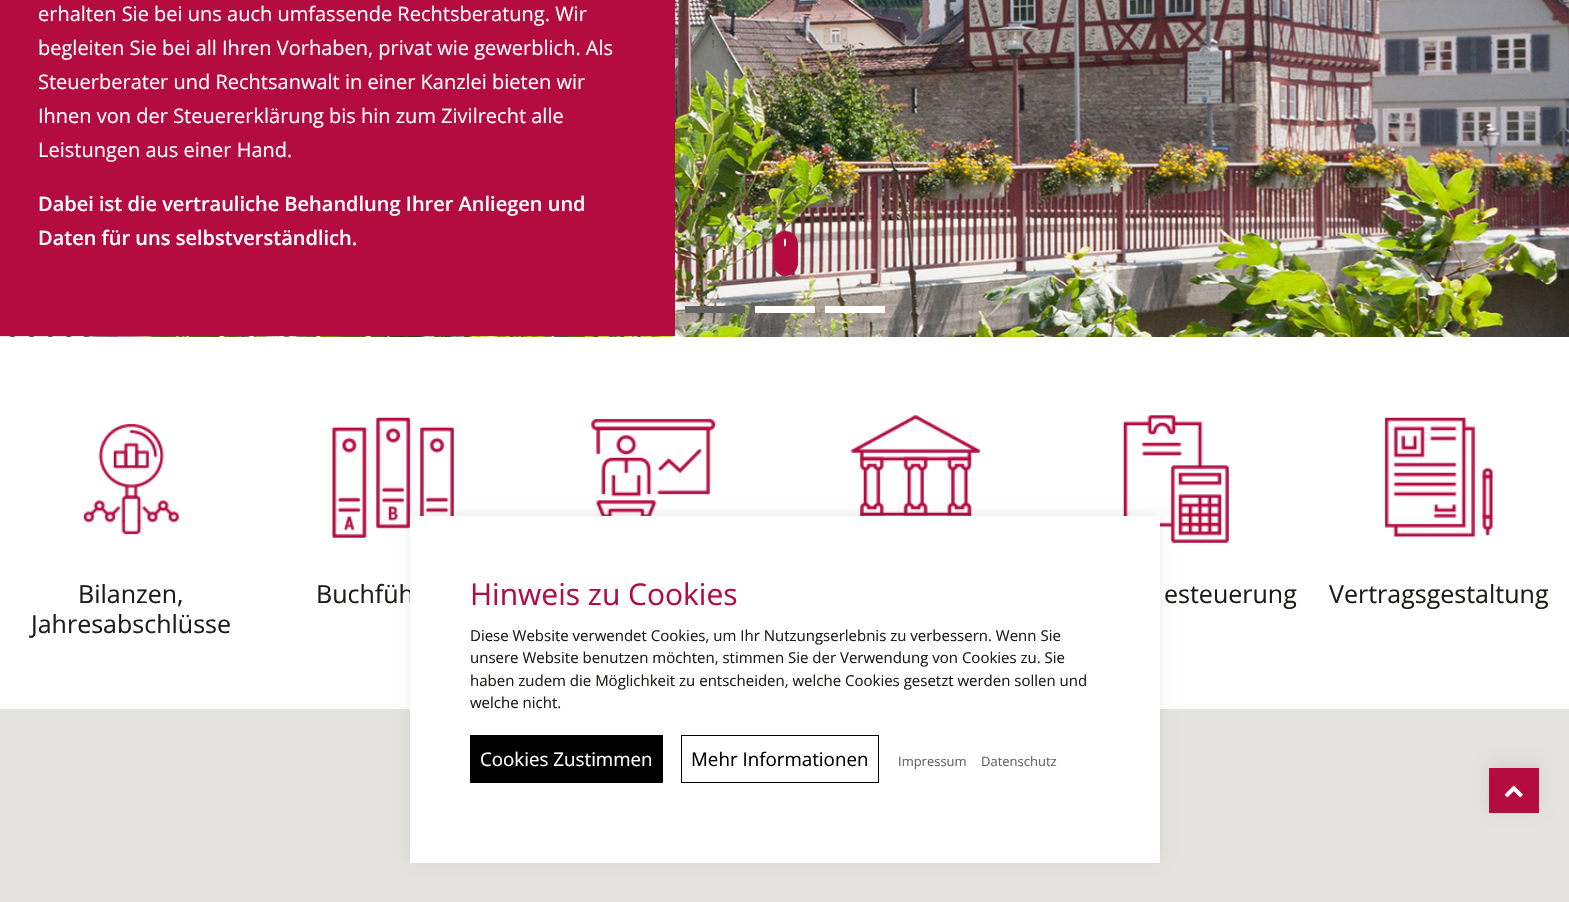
static SkFont makeFont(const char* family, int weight, float size, bool italic = false) {
  SkFontStyle style(weight, SkFontStyle::kNormal_Width,
    italic ? SkFontStyle::kItalic_Slant : SkFontStyle::kUpright_Slant);
  SkFont result(fontMgr->matchFamilyStyle(family, style), size);
  result.setSubpixel(true);
  return result;
}

static void text(SkCanvas* c, const char* s, float x, float y, const SkFont& font, SkColor color) {
  SkPaint ink(SkColor4f::FromColor(color));
  ink.setAntiAlias(true);
  c->drawString(s, x, y, font, ink);
}

static void box(SkCanvas* c, float l, float t, float r, float b, SkColor color) {
  SkPaint ink(SkColor4f::FromColor(color));
  ink.setAntiAlias(true);
  c->drawRect(SkRect::MakeLTRB(l, t, r, b), ink);
}

static void picture(SkCanvas* c, const char* path, float l, float t, float r, float b) {
  auto image = SkImages::DeferredFromEncodedData(SkData::MakeFromFileName(path));
  c->drawImageRect(image, SkRect::MakeLTRB(l, t, r, b), SkSamplingOptions());
}

void draw(SkCanvas* c) {
  SkPaint paint;
  paint.setAntiAlias(true);
  c->clear(0xffffffff);
  picture(c, "img_01.png", 0, 0, 1569, 337);
  box(c, 685, 306, 745, 313, 0xff646363);
  box(c, 755, 306, 815, 313, 0xffffffff);
  box(c, 825, 306, 885, 313, 0xffffffff);
  paint.setColor(0xffb40c41);
  c->drawRoundRect(SkRect::MakeLTRB(773.5f, 231.5f, 797.5f, 275.5f), 12, 12, paint);
  paint.setStyle(SkPaint::kStroke_Style);
  paint.setStrokeWidth(1);
  c->drawRoundRect(SkRect::MakeLTRB(773.5f, 231.5f, 797.5f, 275.5f), 12, 12, paint);
  paint.setStyle(SkPaint::kFill_Style);
  paint.setColor(0xffffffff);
  c->drawOval(SkRect::MakeLTRB(784, 238.5f, 786, 246.5f), paint);
  box(c, 0, 0, 675, 336, 0xffb40c41);
  SkFont face1 = makeFont("Open Sans", 400, 20);
  text(c, "erhalten Sie bei uns auch umfassende Rechtsberatung. Wir", 38, 21, face1, 0xffffffff);
  text(c, "begleiten Sie bei all Ihren Vorhaben, privat wie gewerblich. Als", 38, 55, face1, 0xffffffff);
  text(c, "Steuerberater und Rechtsanwalt in einer Kanzlei bieten wir", 38, 89, face1, 0xffffffff);
  text(c, "Ihnen von der Steuererklärung bis hin zum Zivilrecht alle", 38, 123, face1, 0xffffffff);
  text(c, "Leistungen aus einer Hand.", 38, 157, face1, 0xffffffff);
  SkFont face2 = makeFont("Open Sans", 600, 20);
  text(c, "Dabei ist die vertrauliche Behandlung Ihrer Anliegen und", 38, 211, face2, 0xffffffff);
  text(c, "Daten für uns selbstverständlich.", 38, 245, face2, 0xffffffff);
  picture(c, "img_02.png", 591, 418, 716, 516);
  picture(c, "img_03.png", 851, 415, 981, 516);
  picture(c, "img_05.png", 332, 417, 454, 538);
  picture(c, "img_06.png", 1123, 415, 1229, 543);
  box(c, 0, 709, 1569, 902, 0xffe5e3df);
  paint.setColor(0x14000000);
  paint.setMaskFilter(SkMaskFilter::MakeBlur(kNormal_SkBlurStyle, 6));
  c->drawRect(SkRect::MakeLTRB(410, 513, 1160, 859), paint);
  paint.setMaskFilter(nullptr);
  SkFont face3 = makeFont("Open Sans", 400, 25);
  text(c, "Buchfüh", 316, 603, face3, 0xff1c1c19);
  box(c, 410, 516, 1160, 863, 0xffffffff);
  SkFont face4 = makeFont("Open Sans", 400, 30);
  text(c, "Hinweis zu Cookies", 470, 605, face4, 0xffb40c41);
  SkFont face5 = makeFont("Open Sans", 400, 15);
  text(c, "Diese Website verwendet Cookies, um Ihr Nutzungserlebnis zu verbessern. Wenn Sie", 470, 641, face5, 0xff1c1c19);
  text(c, "unsere Website benutzen möchten, stimmen Sie der Verwendung von Cookies zu. Sie", 470, 663, face5, 0xff1c1c19);
  text(c, "haben zudem die Möglichkeit zu entscheiden, welche Cookies gesetzt werden sollen und", 470, 686, face5, 0xff1c1c19);
  text(c, "welche nicht.", 470, 708, face5, 0xff1c1c19);
  box(c, 470, 735, 663, 783, 0xff000000);
  SkFont face6 = makeFont("Open Sans", 400, 18.75f);
  text(c, "Cookies Zustimmen", 480, 766, face6, 0xffffffff);
  paint.setStyle(SkPaint::kStroke_Style);
  paint.setColor(0xff000000);
  c->drawRect(SkRect::MakeLTRB(681.5f, 735.5f, 878.5f, 782.5f), paint);
  text(c, "Mehr Informationen", 691, 766, face6, 0xff000000);
  SkFont face7 = makeFont("Open Sans", 400, 13);
  text(c, "Impressum", 898, 766, face7, 0xff646363);
  text(c, "Datenschutz", 981, 766, face7, 0xff646363);
  picture(c, "img_04.png", 83, 423, 179, 535);
  text(c, "Bilanzen,", 78, 603, face3, 0xff1c1c19);
  text(c, "Jahresabschlüsse", 31, 633, face3, 0xff1c1c19);
  text(c, "esteuerung", 1164, 603, face3, 0xff1c1c19);
  picture(c, "img_07.png", 1384, 417, 1493, 537);
  text(c, "Vertragsgestaltung", 1329, 603, face3, 0xff1c1c19);
  paint.setStyle(SkPaint::kFill_Style);
  paint.setColor(0x14000000);
  paint.setMaskFilter(SkMaskFilter::MakeBlur(kNormal_SkBlurStyle, 6));
  c->drawRect(SkRect::MakeLTRB(1489, 764, 1539, 809), paint);
  paint.setMaskFilter(nullptr);
  box(c, 1489, 768, 1539, 813, 0xffb40c41);
  picture(c, "img_08.png", 1504, 785, 1523, 798);
}
